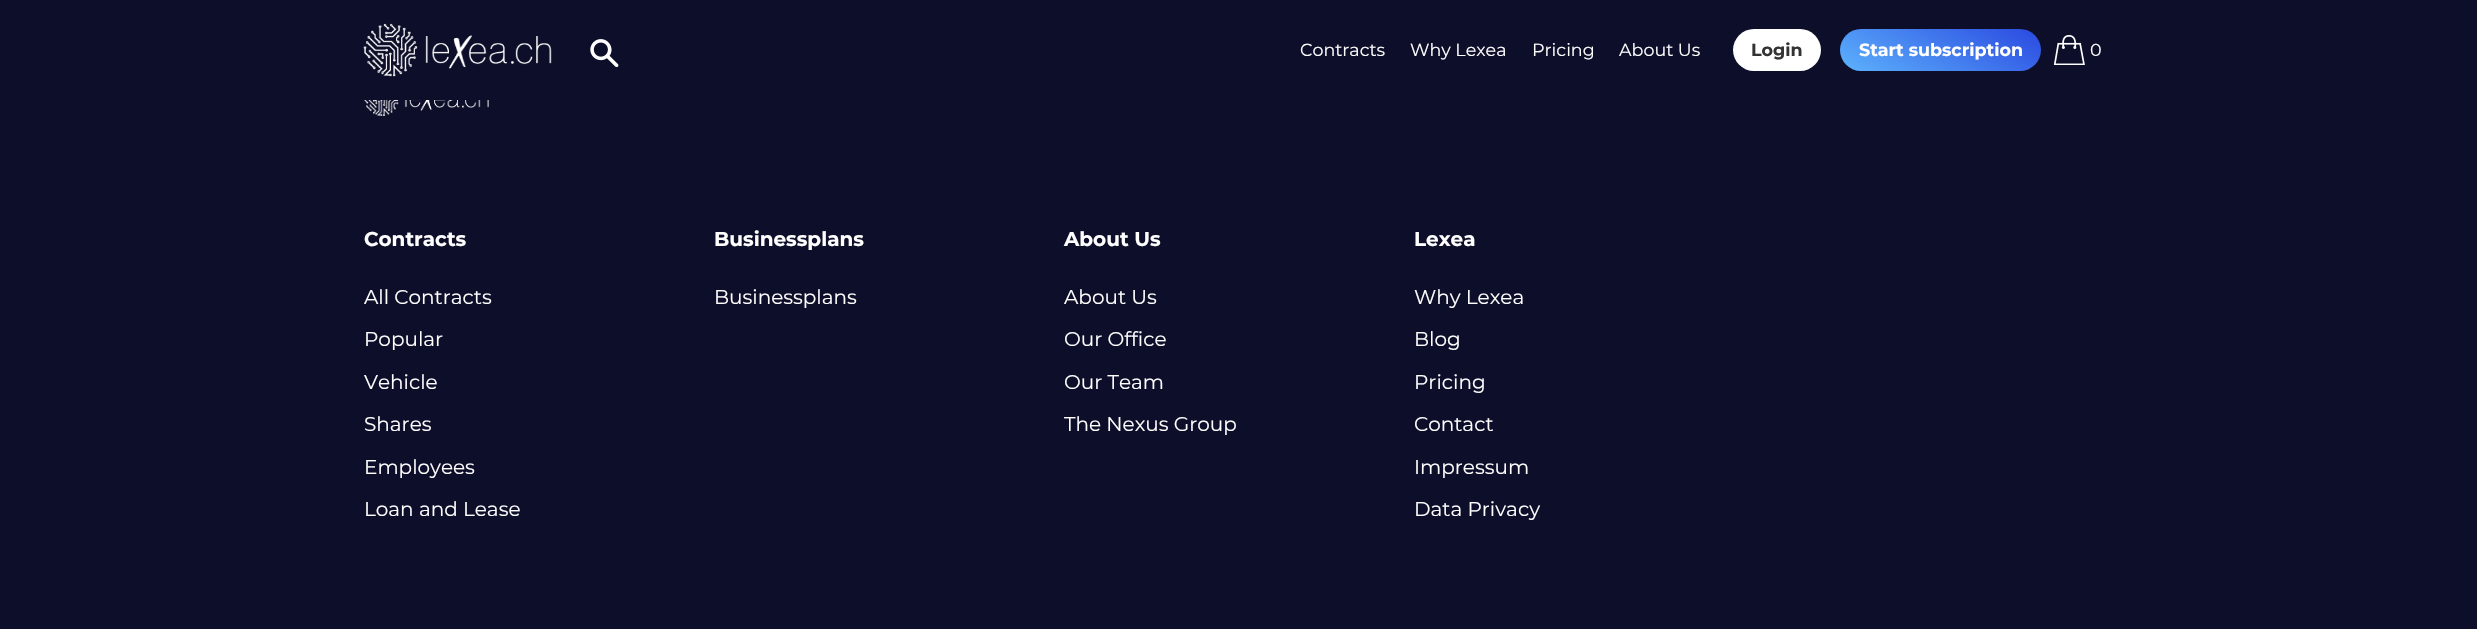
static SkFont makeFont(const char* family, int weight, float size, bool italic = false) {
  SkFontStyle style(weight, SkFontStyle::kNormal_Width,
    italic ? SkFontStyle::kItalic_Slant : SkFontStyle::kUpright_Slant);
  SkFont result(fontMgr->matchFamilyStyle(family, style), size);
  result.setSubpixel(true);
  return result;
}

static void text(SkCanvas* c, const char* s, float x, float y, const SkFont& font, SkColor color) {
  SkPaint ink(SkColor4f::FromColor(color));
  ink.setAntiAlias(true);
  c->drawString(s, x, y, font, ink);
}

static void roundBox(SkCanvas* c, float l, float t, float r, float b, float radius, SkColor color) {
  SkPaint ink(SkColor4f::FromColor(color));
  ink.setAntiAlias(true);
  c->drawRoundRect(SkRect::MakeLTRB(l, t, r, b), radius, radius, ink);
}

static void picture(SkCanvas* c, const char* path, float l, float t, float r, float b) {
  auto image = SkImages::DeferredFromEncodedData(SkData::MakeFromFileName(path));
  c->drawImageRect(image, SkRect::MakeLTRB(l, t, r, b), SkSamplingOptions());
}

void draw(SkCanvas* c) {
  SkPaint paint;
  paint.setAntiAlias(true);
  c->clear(0xff0d0e29);
  picture(c, "img_01.png", 363, 23, 552, 77);
  picture(c, "img_02.png", 590, 39, 619, 68);
  SkFont face1 = makeFont("Montserrat", 400, 17.5f);
  text(c, "Contracts", 1300, 56, face1, 0xffffffff);
  text(c, "Why Lexea", 1410, 56, face1, 0xffffffff);
  text(c, "Pricing", 1532, 56, face1, 0xffffffff);
  text(c, "About Us", 1619, 56, face1, 0xffffffff);
  roundBox(c, 1733, 29, 1821, 71, 21, 0xffffffff);
  SkFont face2 = makeFont("Montserrat", 700, 17.5f);
  text(c, "Login", 1751, 56, face2, 0xff333333);
  {
    const SkColor colors[] = {0xff2a48e0, 0xff5db3fd};
    const float stops[] = {0, 1};
    const SkPoint ends[] = {{1975, -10}, {1906, 110}};
    paint.setShader(SkGradientShader::MakeLinear(ends, colors, stops, 2, SkTileMode::kClamp));
    paint.setAlpha(255);
  }
  c->drawRoundRect(SkRect::MakeLTRB(1840, 29, 2041, 71), 21, 21, paint);
  text(c, "Start subscription", 1859, 56, face2, 0xffffffff);
  picture(c, "img_03.png", 2054, 35, 2085, 65);
  text(c, "0", 2090, 56, face1, 0xffffffff);
  picture(c, "img_04.png", 364, 100, 489, 116);
  SkFont face3 = makeFont("Montserrat", 700, 20);
  text(c, "Contracts", 364, 246, face3, 0xffffffff);
  SkFont face4 = makeFont("Montserrat", 400, 20);
  text(c, "All Contracts", 364, 304, face4, 0xffffffff);
  text(c, "Popular", 364, 346, face4, 0xffffffff);
  text(c, "Vehicle", 364, 389, face4, 0xffffffff);
  text(c, "Shares", 364, 431, face4, 0xffffffff);
  text(c, "Employees", 364, 474, face4, 0xffffffff);
  text(c, "Loan and Lease", 364, 516, face4, 0xffffffff);
  text(c, "Businessplans", 714, 246, face3, 0xffffffff);
  text(c, "Businessplans", 714, 304, face4, 0xffffffff);
  text(c, "About Us", 1064, 246, face3, 0xffffffff);
  text(c, "About Us", 1064, 304, face4, 0xffffffff);
  text(c, "Our Office", 1064, 346, face4, 0xffffffff);
  text(c, "Our Team", 1064, 389, face4, 0xffffffff);
  text(c, "The Nexus Group", 1064, 431, face4, 0xffffffff);
  text(c, "Lexea", 1414, 246, face3, 0xffffffff);
  text(c, "Why Lexea", 1414, 304, face4, 0xffffffff);
  text(c, "Blog", 1414, 346, face4, 0xffffffff);
  text(c, "Pricing", 1414, 389, face4, 0xffffffff);
  text(c, "Contact", 1414, 431, face4, 0xffffffff);
  text(c, "Impressum", 1414, 474, face4, 0xffffffff);
  text(c, "Data Privacy", 1414, 516, face4, 0xffffffff);
}
